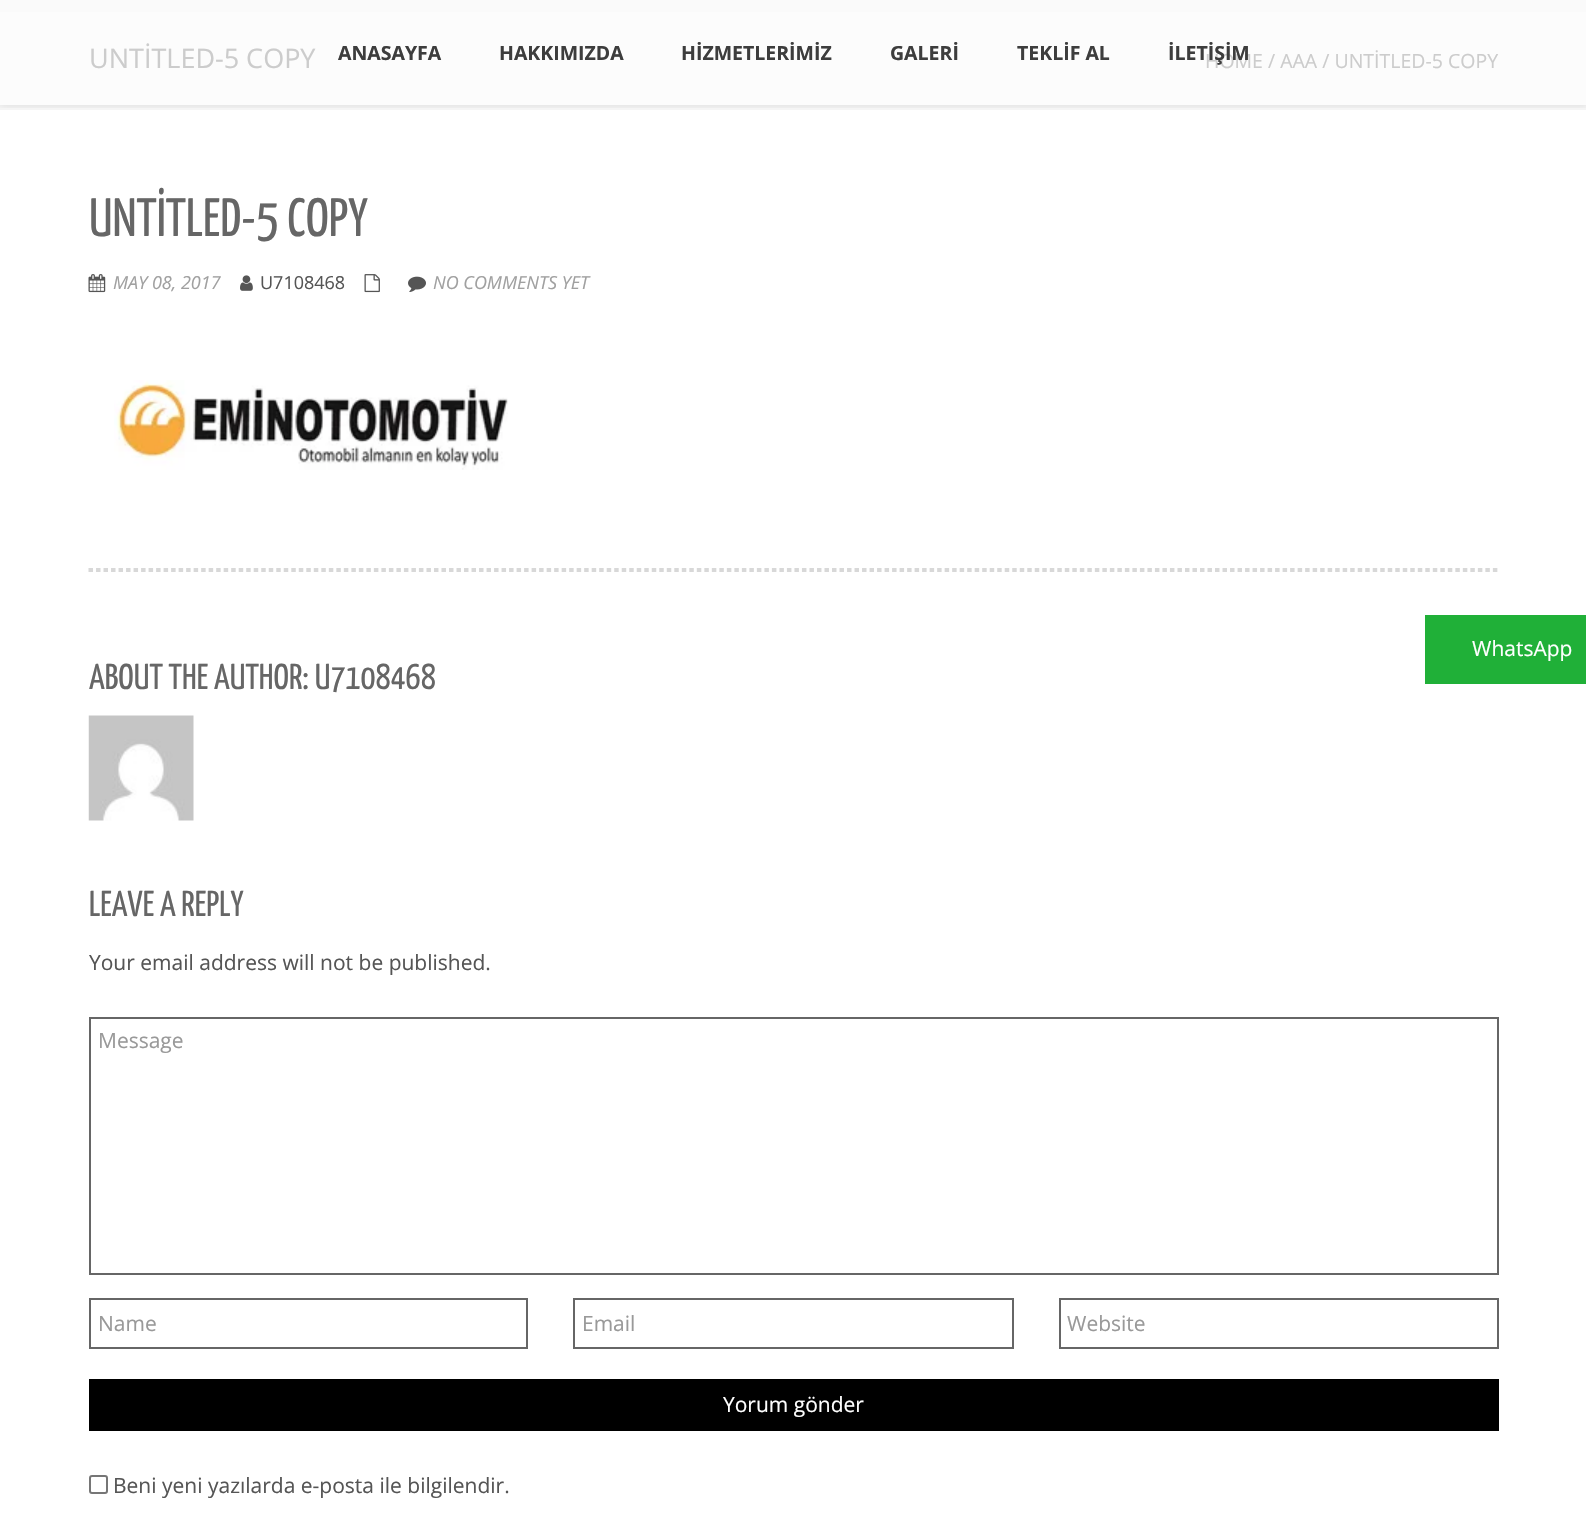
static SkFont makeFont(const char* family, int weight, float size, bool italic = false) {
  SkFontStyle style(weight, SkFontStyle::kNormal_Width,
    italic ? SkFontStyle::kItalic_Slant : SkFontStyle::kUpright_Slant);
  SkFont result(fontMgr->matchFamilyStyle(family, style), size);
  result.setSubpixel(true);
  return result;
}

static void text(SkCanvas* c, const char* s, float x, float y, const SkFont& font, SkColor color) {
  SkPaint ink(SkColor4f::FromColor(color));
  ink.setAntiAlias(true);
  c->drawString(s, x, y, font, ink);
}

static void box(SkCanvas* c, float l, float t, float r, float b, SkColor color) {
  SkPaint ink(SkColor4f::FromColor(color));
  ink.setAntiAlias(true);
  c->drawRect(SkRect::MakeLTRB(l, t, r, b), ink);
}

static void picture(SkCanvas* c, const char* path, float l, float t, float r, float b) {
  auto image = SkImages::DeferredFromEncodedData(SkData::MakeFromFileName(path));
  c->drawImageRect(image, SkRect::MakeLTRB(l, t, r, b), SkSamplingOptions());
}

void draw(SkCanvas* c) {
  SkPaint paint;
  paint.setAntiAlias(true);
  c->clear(0xffffffff);
  box(c, 0, 0, 1586, 12, 0xfffafafa);
  box(c, 0, 105, 1586, 110, 0xfff5f5f5);
  box(c, 0, 12, 1586, 105, 0xfffcfcfc);
  c->save();
  c->clipRect(SkRect::MakeLTRB(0, 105, 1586, 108));
  paint.setColor(0x1a000000);
  paint.setMaskFilter(SkMaskFilter::MakeBlur(kNormal_SkBlurStyle, 4));
  c->drawRect(SkRect::MakeLTRB(0, 0, 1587, 105), paint);
  paint.setMaskFilter(nullptr);
  c->restore();
  SkFont face1 = makeFont("Open Sans", 700, 19.5f);
  text(c, "ANASAYFA", 338, 60, face1, 0xff3d3d3d);
  text(c, "HAKKIMIZDA", 499, 60, face1, 0xff3d3d3d);
  text(c, "HİZMETLERİMİZ", 681, 60, face1, 0xff3d3d3d);
  text(c, "GALERİ", 890, 60, face1, 0xff3d3d3d);
  text(c, "TEKLİF AL", 1017, 60, face1, 0xff3d3d3d);
  SkFont face2 = makeFont("Open Sans", 400, 19.5f);
  text(c, "HOME / AAA / UNTİTLED-5 COPY", 1205, 68, face2, 0xffcccccc);
  text(c, "İLETİŞİM", 1168, 60, face1, 0xff3d3d3d);
  SkFont face3 = makeFont("Open Sans", 400, 27);
  text(c, "UNTİTLED-5 COPY", 89, 68, face3, 0xffcccccc);
  SkFont face4 = makeFont("Yanone Kaffeesatz", 400, 54);
  text(c, "UNTİTLED-5 COPY", 89, 236, face4, 0xff666666);
  picture(c, "img_01.png", 88, 274, 106, 293);
  SkFont face5 = makeFont("Open Sans", 400, 18, true);
  text(c, "MAY 08, 2017", 113, 289, face5, 0xffa0a0a0);
  picture(c, "img_02.png", 240, 275, 253, 291);
  SkFont face6 = makeFont("Open Sans", 400, 18);
  text(c, "U7108468", 260, 289, face6, 0xff555555);
  picture(c, "img_03.png", 364, 274, 380, 293);
  picture(c, "img_04.png", 408, 276, 426, 292);
  text(c, "NO COMMENTS YET", 433, 289, face5, 0xffa0a0a0);
  picture(c, "img_05.png", 114, 380, 508, 470);
  paint.setStyle(SkPaint::kStroke_Style);
  paint.setStrokeWidth(1.5f);
  paint.setColor(0xffcccccc);
  paint.setPathEffect(SkDashPathEffect::Make({{4.5f, 3.01f}}, 0));
  c->drawPath(SkPathBuilder().moveTo(88.5f, 569).lineTo(1498.5f, 569).detach(), paint);
  paint.setPathEffect(nullptr);
  paint.setPathEffect(SkDashPathEffect::Make({{4.5f, 3.01f}}, 0));
  c->drawPath(SkPathBuilder().moveTo(88.5f, 571).lineTo(1498.5f, 571).detach(), paint);
  paint.setPathEffect(nullptr);
  SkFont face7 = makeFont("Yanone Kaffeesatz", 400, 36);
  text(c, "ABOUT THE AUTHOR: U7108468", 89, 689, face7, 0xff666666);
  picture(c, "img_06.png", 88, 715, 194, 821);
  text(c, "LEAVE A REPLY", 89, 916, face7, 0xff666666);
  SkFont face8 = makeFont("Open Sans", 400, 21);
  text(c, "Your email address will not be published.", 89, 970, face8, 0xff555555);
  paint.setStrokeWidth(2);
  paint.setColor(0xff666666);
  c->drawRect(SkRect::MakeLTRB(90, 1018, 1498, 1274), paint);
  text(c, "Message", 98, 1048, face8, 0xff999999);
  c->drawRect(SkRect::MakeLTRB(90, 1299, 527, 1348), paint);
  text(c, "Name", 98, 1331, face8, 0xff999999);
  c->drawRect(SkRect::MakeLTRB(574, 1299, 1013, 1348), paint);
  text(c, "Email", 582, 1331, face8, 0xff999999);
  c->drawRect(SkRect::MakeLTRB(1060, 1299, 1498, 1348), paint);
  text(c, "Website", 1067, 1331, face8, 0xff999999);
  box(c, 89, 1379, 1499, 1431, 0xff000000);
  text(c, "Yorum gönder", 723, 1412, face8, 0xffffffff);
  paint.setColor(0xff767676);
  c->drawRoundRect(SkRect::MakeLTRB(90, 1476, 107, 1493), 2, 2, paint);
  text(c, "Beni yeni yazılarda e-posta ile bilgilendir.", 113, 1493, face8, 0xff555555);
  box(c, 1425, 615, 1586, 684, 0xff20b038);
  text(c, "WhatsApp", 1472, 656, face8, 0xffffffff);
}
